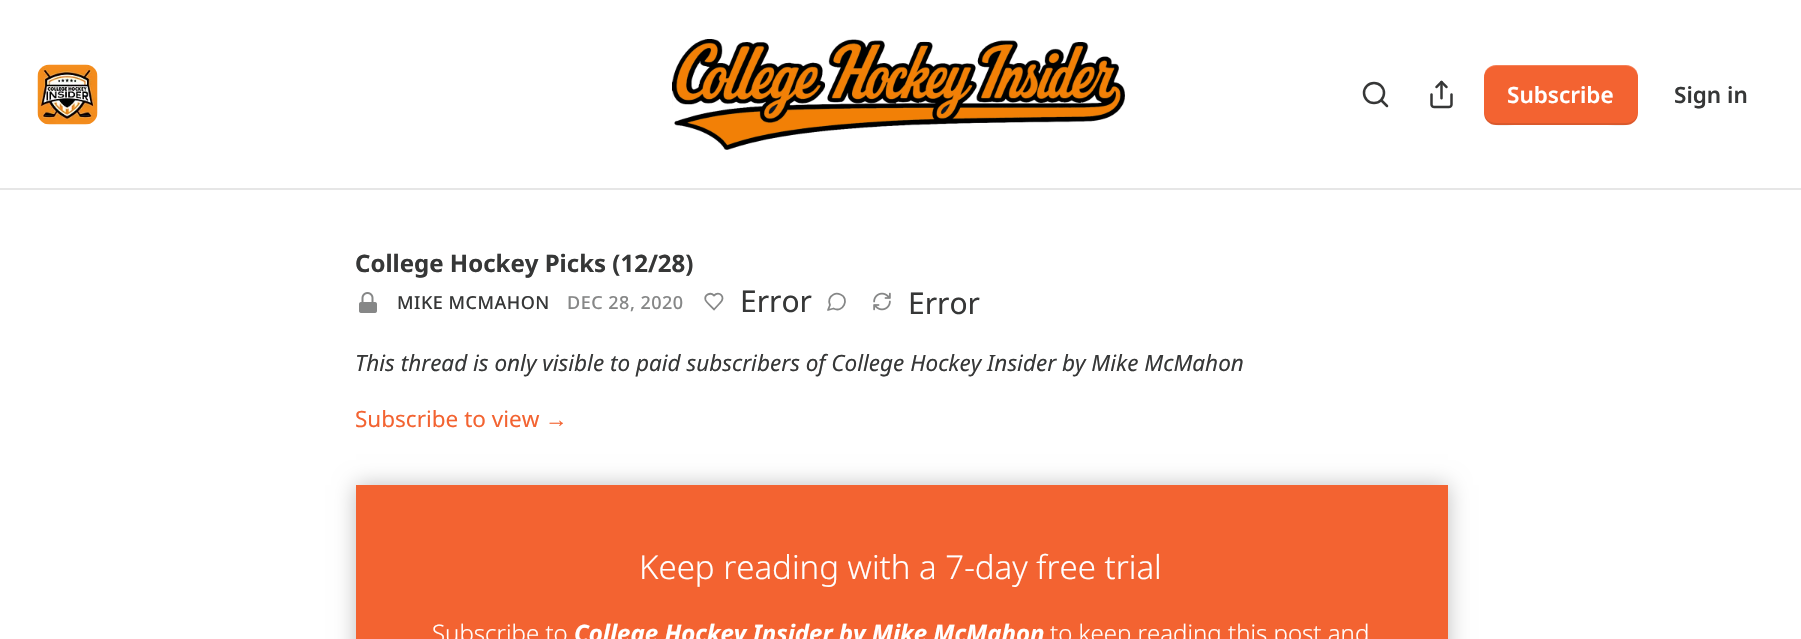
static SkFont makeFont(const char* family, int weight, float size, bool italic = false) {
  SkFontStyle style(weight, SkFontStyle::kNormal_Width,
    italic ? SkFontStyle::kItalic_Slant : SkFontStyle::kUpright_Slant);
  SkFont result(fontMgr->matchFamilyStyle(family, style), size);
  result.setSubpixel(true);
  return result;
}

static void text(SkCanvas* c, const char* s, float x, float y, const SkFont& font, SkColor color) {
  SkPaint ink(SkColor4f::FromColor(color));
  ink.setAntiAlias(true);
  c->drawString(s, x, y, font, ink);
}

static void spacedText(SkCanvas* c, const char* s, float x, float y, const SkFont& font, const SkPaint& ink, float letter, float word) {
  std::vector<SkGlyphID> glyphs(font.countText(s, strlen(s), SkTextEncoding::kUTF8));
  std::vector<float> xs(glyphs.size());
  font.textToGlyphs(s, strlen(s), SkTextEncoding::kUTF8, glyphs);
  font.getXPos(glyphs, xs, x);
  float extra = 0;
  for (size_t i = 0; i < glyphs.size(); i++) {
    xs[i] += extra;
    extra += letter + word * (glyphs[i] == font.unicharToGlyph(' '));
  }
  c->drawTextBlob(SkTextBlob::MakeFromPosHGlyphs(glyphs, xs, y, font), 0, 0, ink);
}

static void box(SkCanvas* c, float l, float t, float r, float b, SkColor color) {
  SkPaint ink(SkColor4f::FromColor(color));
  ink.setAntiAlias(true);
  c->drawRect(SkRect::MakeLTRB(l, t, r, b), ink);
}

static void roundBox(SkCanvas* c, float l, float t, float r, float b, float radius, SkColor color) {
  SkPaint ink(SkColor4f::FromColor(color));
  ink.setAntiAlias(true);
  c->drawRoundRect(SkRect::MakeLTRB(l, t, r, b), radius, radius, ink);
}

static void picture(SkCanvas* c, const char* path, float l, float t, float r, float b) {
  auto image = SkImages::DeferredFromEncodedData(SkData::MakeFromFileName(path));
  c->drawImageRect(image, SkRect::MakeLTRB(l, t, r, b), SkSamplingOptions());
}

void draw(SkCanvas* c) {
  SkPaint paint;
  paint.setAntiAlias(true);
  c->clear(0xffffffff);
  box(c, 0, 188, 1801, 190, 0xffe6e6e6);
  picture(c, "img_01.png", 37, 64, 98, 125);
  picture(c, "img_02.png", 672, 39, 1125, 150);
  paint.setStyle(SkPaint::kStroke_Style);
  paint.setStrokeWidth(2.5f);
  paint.setColor(0xff363737);
  c->drawCircle(1374, 93, 10, paint);
  paint.setStrokeCap(SkPaint::kRound_Cap);
  paint.setStrokeJoin(SkPaint::kRound_Join);
  c->drawPath(SkPathBuilder().moveTo(1387, 106).lineTo(1381.5f, 100.5f).detach(), paint);
  picture(c, "img_03.png", 1430, 80, 1453, 109);
  roundBox(c, 1484, 65, 1638, 125, 12, 0xfff36331);
  paint.setStyle(SkPaint::kFill_Style);
  paint.setColor(0x1a000000);
  c->drawPath(SkPathBuilder().moveTo(1484, 111).cubicTo(1484, 130, 1504, 125, 1518, 125).lineTo(1604, 125).cubicTo(1618, 125, 1638, 130, 1638, 111).cubicTo(1638, 118, 1633, 123, 1626, 123).lineTo(1496, 123).cubicTo(1489, 123, 1484, 118, 1484, 111).close().detach(), paint);
  paint.setColor(0x33ffffff);
  c->drawPath(SkPathBuilder().moveTo(1496, 66).lineTo(1626, 66).cubicTo(1633, 66, 1638, 71, 1638, 78).cubicTo(1638, 60, 1616, 65, 1604, 65).lineTo(1518, 65).cubicTo(1506, 65, 1484, 60, 1484, 78).cubicTo(1484, 71, 1489, 66, 1496, 66).close().detach(), paint);
  SkFont face1 = makeFont("Noto Sans", 600, 22.5f);
  text(c, "Subscribe", 1507, 103, face1, 0xffffffff);
  text(c, "Sign in", 1674, 103, face1, 0xff363737);
  SkFont face2 = makeFont("Noto Sans", 700, 24);
  text(c, "College Hockey Picks (12/28)", 355, 272, face2, 0xff363737);
  picture(c, "img_04.png", 359, 292, 377, 313);
  SkFont face3 = makeFont("Noto Sans", 500, 18);
  paint.setColor(0xff363737);
  spacedText(c, "MIKE MCMAHON", 397, 309, face3, paint, 0.5f, 0);
  paint.setColor(0xff868787);
  spacedText(c, "DEC 28, 2020", 567, 309, face3, paint, 0.5f, 0);
  paint.setStyle(SkPaint::kStroke_Style);
  paint.setStrokeWidth(1.8f);
  c->drawPath(SkPathBuilder().moveTo(720, 303).cubicTo(726.5f, 297, 719, 290.5f, 714, 295.5f).cubicTo(710.5f, 292, 704, 294.5f, 705.5f, 300).cubicTo(706.5f, 302.5f, 712, 307, 714, 309.5f).close().detach(), paint);
  SkFont face4 = makeFont("Noto Sans", 400, 30);
  text(c, "Error", 740, 312, face4, 0xff363737);
  c->drawPath(SkPathBuilder().moveTo(833.5f, 308.5f).cubicTo(843, 313.5f, 850, 298.5f, 840.5f, 294.5f).cubicTo(838, 293.5f, 835.5f, 293.5f, 833.5f, 294.5f).cubicTo(829.5f, 296.5f, 828, 301, 830, 305).lineTo(828, 310).close().detach(), paint);
  picture(c, "img_05.png", 873, 292, 891, 311);
  text(c, "Error", 908, 314, face4, 0xff363737);
  SkFont face5 = makeFont("Noto Sans", 400, 22.5f, true);
  text(c, "This thread is only visible to paid subscribers of College Hockey Insider by Mike McMahon", 355, 371, face5, 0xff363737);
  SkFont face6 = makeFont("Noto Sans", 400, 22.5f);
  text(c, "Subscribe to view", 355, 427, face6, 0xfff36331);
  SkFont face7 = makeFont("Liberation Sans", 400, 22.5f);
  text(c, "→", 545, 427, face7, 0xfff36331);
  box(c, 356, 485, 1448, 639, 0xfff36331);
  c->save();
  c->clipPath(SkPathBuilder(SkPathFillType::kEvenOdd).moveTo(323, 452).lineTo(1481, 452).lineTo(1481, 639).lineTo(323, 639).close().moveTo(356, 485).lineTo(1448, 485).lineTo(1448, 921).lineTo(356, 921).close().detach(), true);
  paint.setStyle(SkPaint::kFill_Style);
  paint.setColor(0x40000000);
  paint.setMaskFilter(SkMaskFilter::MakeBlur(kNormal_SkBlurStyle, 10.5f));
  c->drawRect(SkRect::MakeLTRB(356, 485, 1448, 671), paint);
  paint.setMaskFilter(nullptr);
  c->restore();
  SkFont face8 = makeFont("Noto Sans", 300, 33);
  text(c, "Keep reading with a 7-day free trial", 639, 579, face8, 0xffffffff);
  SkFont face9 = makeFont("Noto Sans", 300, 24);
  text(c, "Subscribe to", 432, 642, face9, 0xffffffff);
  SkFont face10 = makeFont("Noto Sans", 700, 24, true);
  text(c, "College Hockey Insider by Mike McMahon", 574, 642, face10, 0xffffffff);
  text(c, "to keep reading this post and", 1050, 642, face9, 0xffffffff);
}
